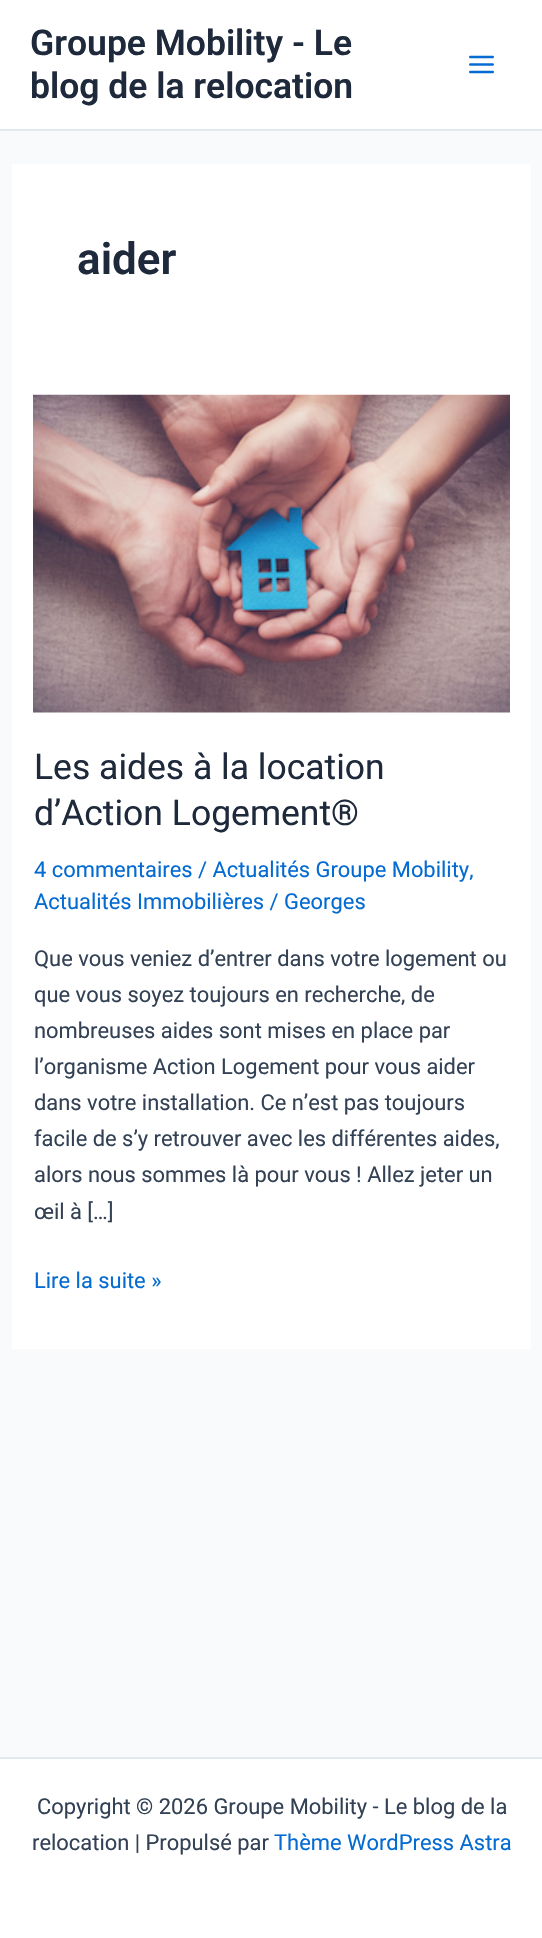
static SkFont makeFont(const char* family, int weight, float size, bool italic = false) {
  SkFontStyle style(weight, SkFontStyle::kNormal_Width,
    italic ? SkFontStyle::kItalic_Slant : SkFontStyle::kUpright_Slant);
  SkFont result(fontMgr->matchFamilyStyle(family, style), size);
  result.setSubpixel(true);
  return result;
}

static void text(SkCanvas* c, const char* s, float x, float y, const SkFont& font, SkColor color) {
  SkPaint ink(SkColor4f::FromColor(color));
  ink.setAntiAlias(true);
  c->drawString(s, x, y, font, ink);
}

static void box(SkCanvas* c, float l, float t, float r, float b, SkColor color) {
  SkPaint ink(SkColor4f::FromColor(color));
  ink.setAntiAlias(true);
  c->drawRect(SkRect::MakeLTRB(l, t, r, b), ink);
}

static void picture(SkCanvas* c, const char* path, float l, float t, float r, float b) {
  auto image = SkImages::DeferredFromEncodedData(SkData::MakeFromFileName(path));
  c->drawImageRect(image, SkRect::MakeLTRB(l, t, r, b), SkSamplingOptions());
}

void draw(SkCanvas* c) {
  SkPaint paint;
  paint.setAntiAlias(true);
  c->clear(0xfff9fafb);
  box(c, 0, 0, 542, 129, 0xffffffff);
  box(c, 0, 129, 542, 131, 0xffe2e8f0);
  SkFont face1 = makeFont("Roboto", 600, 35.5f);
  text(c, "Groupe Mobility - Le", 30, 55, face1, 0xff1e293b);
  text(c, "blog de la relocation", 30, 98, face1, 0xff1e293b);
  picture(c, "img_01.png", 469, 55, 494, 74);
  box(c, 12, 164, 531, 1349, 0xffffffff);
  SkFont face2 = makeFont("Roboto", 600, 44);
  text(c, "aider", 77, 274, face2, 0xff1e293b);
  picture(c, "img_02.png", 33, 394, 510, 713);
  SkFont face3 = makeFont("Roboto", 400, 35.5f);
  text(c, "Les aides à la location", 34, 779, face3, 0xff1e293b);
  text(c, "d’Action Logement®", 34, 825, face3, 0xff1e293b);
  SkFont face4 = makeFont("Roboto", 400, 21.9f);
  text(c, "4 commentaires / Actualités Groupe Mobility,", 34, 877, face4, 0xff046bd2);
  text(c, "Actualités Immobilières / Georges", 34, 909, face4, 0xff046bd2);
  text(c, "Que vous veniez d’entrer dans votre logement ou", 34, 966, face4, 0xff334155);
  text(c, "que vous soyez toujours en recherche, de", 34, 1002, face4, 0xff334155);
  text(c, "nombreuses aides sont mises en place par", 34, 1038, face4, 0xff334155);
  text(c, "l’organisme Action Logement pour vous aider", 34, 1074, face4, 0xff334155);
  text(c, "dans votre installation. Ce n’est pas toujours", 34, 1110, face4, 0xff334155);
  text(c, "facile de s’y retrouver avec les différentes aides,", 34, 1146, face4, 0xff334155);
  text(c, "alors nous sommes là pour vous ! Allez jeter un", 34, 1182, face4, 0xff334155);
  text(c, "œil à […]", 34, 1219, face4, 0xff334155);
  text(c, "Lire la suite »", 34, 1288, face4, 0xff046bd2);
  box(c, 0, 1759, 542, 1938, 0xffffffff);
  box(c, 0, 1757, 542, 1759, 0xffe2e8f0);
  text(c, "Copyright © 2026 Groupe Mobility - Le blog de la", 37, 1814, face4, 0xff334155);
  text(c, "relocation | Propulsé par", 32, 1850, face4, 0xff334155);
  text(c, "Thème WordPress Astra", 274, 1850, face4, 0xff046bd2);
}
